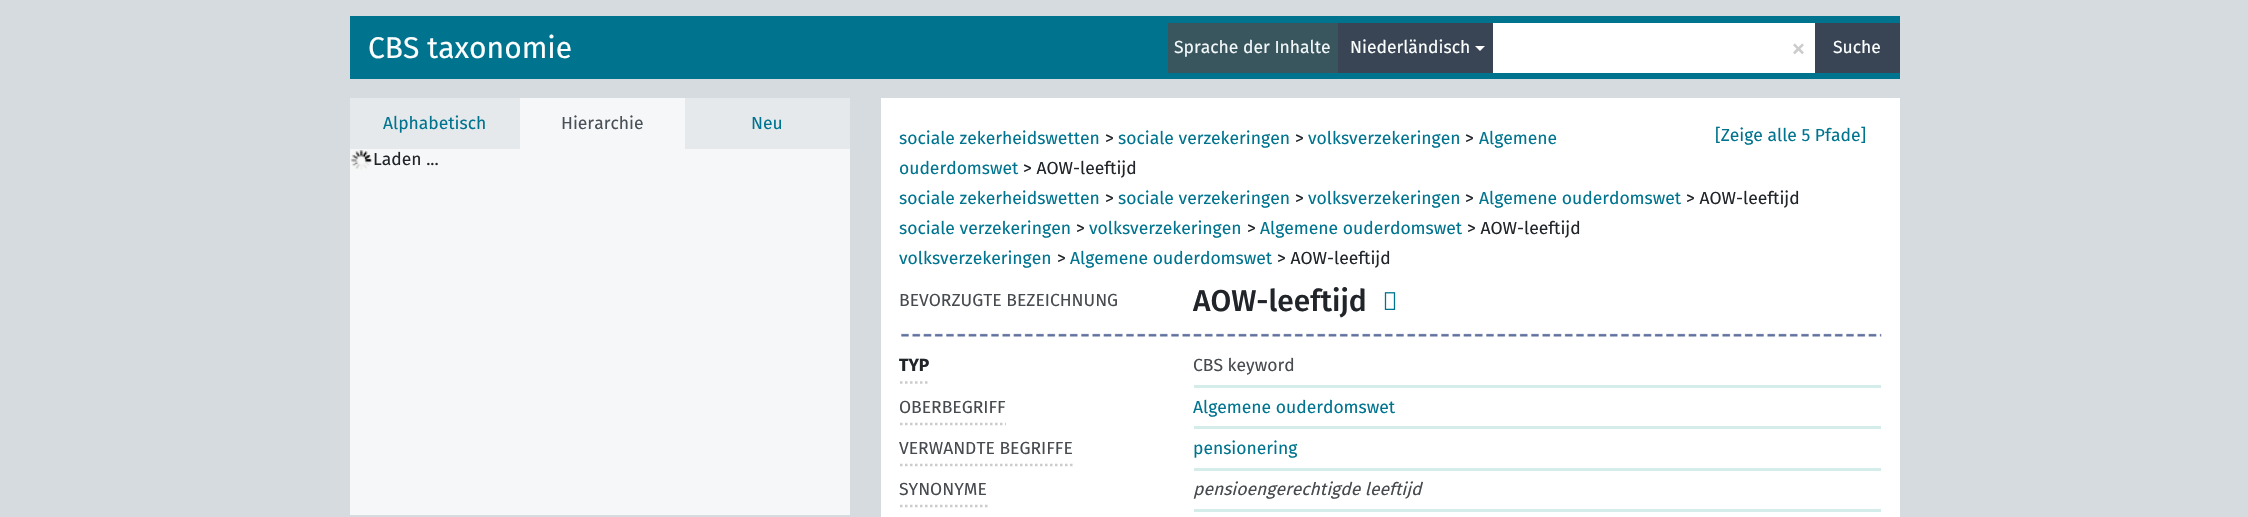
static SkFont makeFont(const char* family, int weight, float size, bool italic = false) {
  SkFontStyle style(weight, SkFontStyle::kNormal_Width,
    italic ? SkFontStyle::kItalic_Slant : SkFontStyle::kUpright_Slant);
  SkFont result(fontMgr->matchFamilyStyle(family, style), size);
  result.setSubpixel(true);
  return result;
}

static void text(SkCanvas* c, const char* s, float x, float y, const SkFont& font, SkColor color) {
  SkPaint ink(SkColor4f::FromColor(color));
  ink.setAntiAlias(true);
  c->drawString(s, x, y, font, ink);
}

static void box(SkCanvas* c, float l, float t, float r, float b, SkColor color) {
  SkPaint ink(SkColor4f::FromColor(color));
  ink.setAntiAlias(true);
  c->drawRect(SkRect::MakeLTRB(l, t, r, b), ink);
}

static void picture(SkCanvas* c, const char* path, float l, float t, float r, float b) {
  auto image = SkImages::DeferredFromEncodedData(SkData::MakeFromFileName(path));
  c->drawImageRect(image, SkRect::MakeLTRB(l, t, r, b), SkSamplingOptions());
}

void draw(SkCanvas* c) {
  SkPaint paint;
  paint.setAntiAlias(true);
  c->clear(0xffd5dbde);
  box(c, 350, 16, 1900, 79, 0xff00748f);
  SkFont face1 = makeFont("Fira Sans", 400, 30);
  text(c, "CBS taxonomie", 368, 58, face1, 0xfffcfefe);
  box(c, 1168, 23, 1338, 73, 0xff39555e);
  SkFont face2 = makeFont("Fira Sans", 400, 17.5f);
  text(c, "Sprache der Inhalte", 1174, 53, face2, 0xfff2f8f9);
  box(c, 1338, 23, 1493, 73, 0xff394554);
  text(c, "Niederländisch", 1350, 53, face2, 0xfffcfefe);
  paint.setColor(0xffffffff);
  c->drawPath(SkPathBuilder().moveTo(1475, 46).lineTo(1485, 46).lineTo(1480, 51).close().detach(), paint);
  box(c, 1493, 23, 1815, 73, 0xffffffff);
  text(c, "×", 1791, 58, face1, 0xffcccccc);
  box(c, 1815, 23, 1900, 73, 0xff394554);
  text(c, "Suche", 1833, 53, face2, 0xfffcfefe);
  box(c, 350, 98, 520, 149, 0xffe6e9eb);
  text(c, "Alphabetisch", 383, 129, face2, 0xff00748f);
  box(c, 520, 98, 685, 149, 0xfff6f7f8);
  text(c, "Hierarchie", 561, 129, face2, 0xff495057);
  box(c, 685, 98, 850, 149, 0xffe6e9eb);
  text(c, "Neu", 751, 129, face2, 0xff00748f);
  box(c, 350, 149, 850, 515, 0xfff6f7f8);
  picture(c, "img_01.png", 351, 150, 372, 170);
  text(c, "Laden ...", 373, 165, face2, 0xff212529);
  box(c, 881, 98, 1900, 517, 0xffffffff);
  text(c, "sociale zekerheidswetten", 899, 144, face2, 0xff00748f);
  text(c, ">", 1105, 144, face2, 0xff212529);
  text(c, "sociale verzekeringen", 1118, 144, face2, 0xff00748f);
  text(c, ">", 1295, 144, face2, 0xff212529);
  text(c, "volksverzekeringen", 1308, 144, face2, 0xff00748f);
  text(c, ">", 1465, 144, face2, 0xff212529);
  text(c, "Algemene", 1479, 144, face2, 0xff00748f);
  text(c, "ouderdomswet", 899, 174, face2, 0xff00748f);
  text(c, "> AOW-leeftijd", 1023, 174, face2, 0xff212529);
  text(c, "[Zeige alle 5 Pfade]", 1715, 141, face2, 0xff00748f);
  text(c, "sociale zekerheidswetten", 899, 204, face2, 0xff00748f);
  text(c, ">", 1105, 204, face2, 0xff212529);
  text(c, "sociale verzekeringen", 1118, 204, face2, 0xff00748f);
  text(c, ">", 1295, 204, face2, 0xff212529);
  text(c, "volksverzekeringen", 1308, 204, face2, 0xff00748f);
  text(c, ">", 1465, 204, face2, 0xff212529);
  text(c, "Algemene ouderdomswet", 1479, 204, face2, 0xff00748f);
  text(c, "> AOW-leeftijd", 1686, 204, face2, 0xff212529);
  text(c, "sociale verzekeringen", 899, 234, face2, 0xff00748f);
  text(c, ">", 1076, 234, face2, 0xff212529);
  text(c, "volksverzekeringen", 1089, 234, face2, 0xff00748f);
  text(c, ">", 1247, 234, face2, 0xff212529);
  text(c, "Algemene ouderdomswet", 1260, 234, face2, 0xff00748f);
  text(c, "> AOW-leeftijd", 1467, 234, face2, 0xff212529);
  text(c, "volksverzekeringen", 899, 264, face2, 0xff00748f);
  text(c, ">", 1057, 264, face2, 0xff212529);
  text(c, "Algemene ouderdomswet", 1070, 264, face2, 0xff00748f);
  text(c, "> AOW-leeftijd", 1277, 264, face2, 0xff212529);
  text(c, "BEVORZUGTE BEZEICHNUNG", 899, 306, face2, 0xff474b4f);
  SkFont face3 = makeFont("Fira Sans", 500, 30);
  text(c, "AOW-leeftijd", 1193, 311, face3, 0xff212529);
  picture(c, "img_02.png", 1384, 292, 1396, 310);
  picture(c, "img_03.png", 901, 333, 1882, 337);
  paint.setStyle(SkPaint::kStroke_Style);
  paint.setStrokeWidth(2.5f);
  paint.setColor(0xffcccccc);
  paint.setPathEffect(SkDashPathEffect::Make({{2.5f, 2.5f}}, 0));
  c->drawPath(SkPathBuilder().moveTo(900, 382.5f).lineTo(930, 382.5f).detach(), paint);
  paint.setPathEffect(nullptr);
  SkFont face4 = makeFont("Fira Sans", 700, 17.5f);
  text(c, "TYP", 899, 371, face4, 0xff212529);
  box(c, 1194, 385, 1881, 388, 0xffd4edeb);
  text(c, "CBS keyword", 1193, 371, face2, 0xff474b4f);
  paint.setPathEffect(SkDashPathEffect::Make({{2.5f, 2.5f}}, 0));
  c->drawPath(SkPathBuilder().moveTo(900, 424).lineTo(1006, 424).detach(), paint);
  paint.setPathEffect(nullptr);
  text(c, "OBERBEGRIFF", 899, 413, face2, 0xff474b4f);
  box(c, 1194, 426, 1881, 429, 0xffd4edeb);
  text(c, "Algemene ouderdomswet", 1193, 413, face2, 0xff00748f);
  paint.setPathEffect(SkDashPathEffect::Make({{2.5f, 2.5f}}, 0));
  c->drawPath(SkPathBuilder().moveTo(900, 465).lineTo(1074, 465).detach(), paint);
  paint.setPathEffect(nullptr);
  text(c, "VERWANDTE BEGRIFFE", 899, 454, face2, 0xff474b4f);
  box(c, 1194, 468, 1881, 471, 0xffd4edeb);
  text(c, "pensionering", 1193, 454, face2, 0xff00748f);
  paint.setPathEffect(SkDashPathEffect::Make({{2.5f, 2.5f}}, 0));
  c->drawPath(SkPathBuilder().moveTo(900, 506).lineTo(987.5f, 506).detach(), paint);
  paint.setPathEffect(nullptr);
  text(c, "SYNONYME", 899, 495, face2, 0xff474b4f);
  box(c, 1194, 509, 1881, 512, 0xffd4edeb);
  SkFont face5 = makeFont("Fira Sans", 400, 17.5f, true);
  text(c, "pensioengerechtigde leeftijd", 1193, 495, face5, 0xff474b4f);
}
